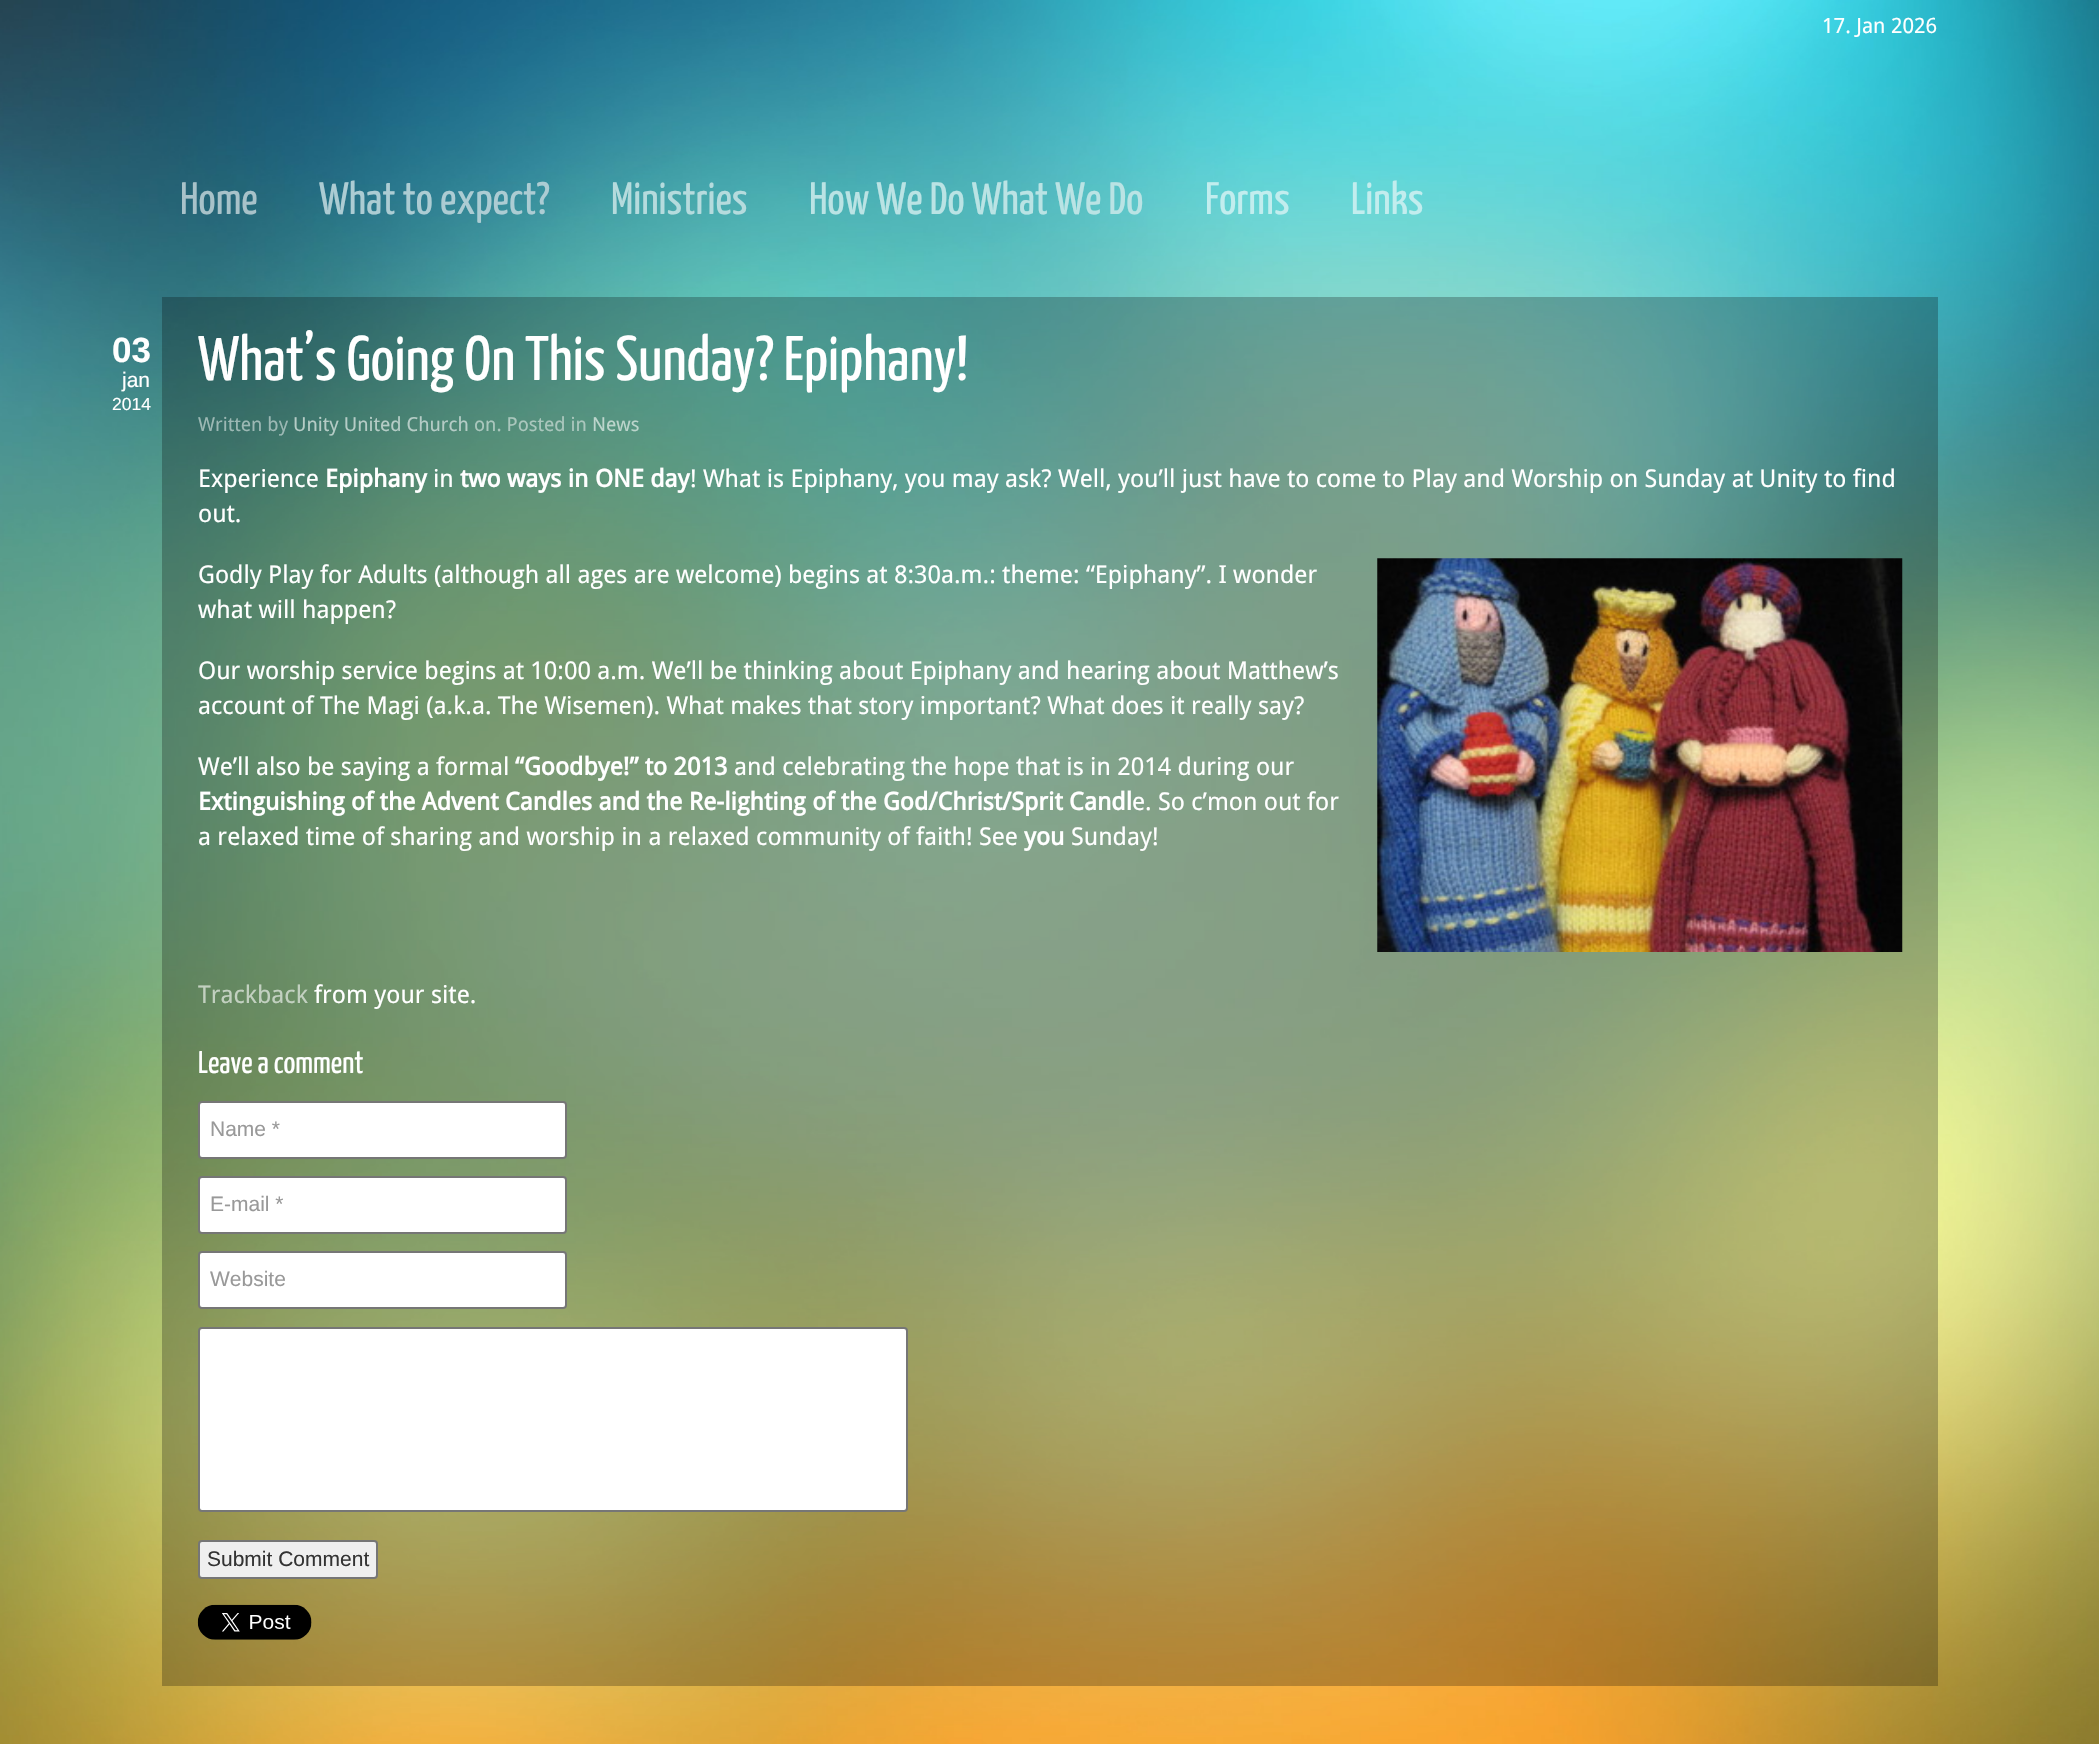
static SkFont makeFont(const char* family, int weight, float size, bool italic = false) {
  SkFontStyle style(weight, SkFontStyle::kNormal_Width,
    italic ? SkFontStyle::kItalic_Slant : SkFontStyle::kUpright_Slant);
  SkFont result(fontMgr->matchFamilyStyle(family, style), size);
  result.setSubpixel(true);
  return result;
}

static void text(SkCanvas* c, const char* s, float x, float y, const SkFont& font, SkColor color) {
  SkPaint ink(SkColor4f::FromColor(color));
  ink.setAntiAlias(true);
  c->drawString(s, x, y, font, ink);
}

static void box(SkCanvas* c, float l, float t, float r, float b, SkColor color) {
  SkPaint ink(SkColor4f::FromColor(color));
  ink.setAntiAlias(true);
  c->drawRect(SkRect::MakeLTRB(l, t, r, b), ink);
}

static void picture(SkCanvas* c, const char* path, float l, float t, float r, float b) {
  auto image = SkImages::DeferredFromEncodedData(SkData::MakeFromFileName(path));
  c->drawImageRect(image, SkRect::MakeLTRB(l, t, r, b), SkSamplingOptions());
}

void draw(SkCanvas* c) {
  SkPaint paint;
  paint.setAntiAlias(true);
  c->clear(0xffffffff);
  picture(c, "img_01.png", 0, 0, 2099, 1744);
  SkFont face1 = makeFont("Droid Sans", 400, 21);
  text(c, "17. Jan 2026", 1822, 33, face1, 0xffffffff);
  SkFont face2 = makeFont("Yanone Kaffeesatz", 400, 45.5f);
  text(c, "Home", 180, 214, face2, 0xffa8c2c9);
  text(c, "What to expect?", 319, 214, face2, 0xffacccd3);
  text(c, "Ministries", 611, 214, face2, 0xffb5dbdd);
  text(c, "How We Do What We Do", 809, 214, face2, 0xffbae3e4);
  text(c, "Forms", 1205, 214, face2, 0xffc2edee);
  text(c, "Links", 1351, 214, face2, 0xffc2edee);
  box(c, 162, 297, 1938, 1686, 0x40000000);
  SkFont face3 = makeFont("Liberation Sans", 700, 35);
  text(c, "03", 112, 362, face3, 0xffffffff);
  SkFont face4 = makeFont("Liberation Sans", 400, 21);
  text(c, "jan", 122, 387, face4, 0xffffffff);
  SkFont face5 = makeFont("Liberation Sans", 400, 17.5f);
  text(c, "2014", 112, 410, face5, 0xffffffff);
  SkFont face6 = makeFont("Yanone Kaffeesatz", 400, 63);
  text(c, "What’s Going On This Sunday? Epiphany!", 198, 380, face6, 0xffffffff);
  SkFont face7 = makeFont("Droid Sans", 400, 19.25f);
  text(c, "Written by", 198, 431, face7, 0xff9cb8b4);
  text(c, "Unity United Church", 293, 431, face7, 0xffb5ccc6);
  text(c, "on. Posted in", 474, 431, face7, 0xffaac7bd);
  text(c, "News", 592, 431, face7, 0xffbcd5cc);
  SkFont face8 = makeFont("Droid Sans", 400, 24.5f);
  text(c, "Experience", 198, 487, face8, 0xffffffff);
  SkFont face9 = makeFont("Droid Sans", 700, 24.5f);
  text(c, "Epiphany", 325, 487, face9, 0xffffffff);
  text(c, "in", 433, 487, face8, 0xffffffff);
  text(c, "two ways in ONE day", 460, 487, face9, 0xffffffff);
  text(c, "! What is Epiphany, you may ask? Well, you’ll just have to come to Play and Worship on Sunday at Unity to find", 690, 487, face8, 0xffffffff);
  text(c, "out.", 198, 522, face8, 0xffffffff);
  text(c, "Godly Play for Adults (although all ages are welcome) begins at 8:30a.m.: theme: “Epiphany”. I wonder", 198, 583, face8, 0xffffffff);
  text(c, "what will happen?", 198, 618, face8, 0xffffffff);
  picture(c, "img_02.png", 1377, 558, 1903, 952);
  text(c, "Our worship service begins at 10:00 a.m. We’ll be thinking about Epiphany and hearing about Matthew’s", 198, 679, face8, 0xffffffff);
  text(c, "account of The Magi (a.k.a. The Wisemen). What makes that story important? What does it really say?", 198, 714, face8, 0xffffffff);
  text(c, "We’ll also be saying a formal", 198, 775, face8, 0xffffffff);
  text(c, "“Goodbye!” to 2013", 515, 775, face9, 0xffffffff);
  text(c, "and celebrating the hope that is in 2014 during our", 734, 775, face8, 0xffffffff);
  text(c, "Extinguishing of the Advent Candles and the Re-lighting of the God/Christ/Sprit Candl", 198, 810, face9, 0xffffffff);
  text(c, "e. So c’mon out for", 1132, 810, face8, 0xffffffff);
  text(c, "a relaxed time of sharing and worship in a relaxed community of faith! See", 198, 845, face8, 0xffffffff);
  text(c, "you", 1024, 845, face9, 0xffffffff);
  text(c, "Sunday!", 1071, 845, face8, 0xffffffff);
  text(c, "Trackback", 198, 1003, face8, 0xffc2d0c0);
  text(c, "from your site.", 314, 1003, face8, 0xffffffff);
  SkFont face10 = makeFont("Yanone Kaffeesatz", 400, 31.5f);
  text(c, "Leave a comment", 198, 1073, face10, 0xffffffff);
  paint.setColor(0xffffffff);
  c->drawRoundRect(SkRect::MakeLTRB(199, 1102, 566, 1158), 3, 3, paint);
  paint.setStyle(SkPaint::kStroke_Style);
  paint.setStrokeWidth(2);
  paint.setColor(0xff767676);
  c->drawRoundRect(SkRect::MakeLTRB(199, 1102, 566, 1158), 3, 3, paint);
  text(c, "Name *", 210, 1136, face4, 0xff999999);
  paint.setStyle(SkPaint::kFill_Style);
  paint.setColor(0xffffffff);
  c->drawRoundRect(SkRect::MakeLTRB(199, 1177, 566, 1233), 3, 3, paint);
  paint.setStyle(SkPaint::kStroke_Style);
  paint.setColor(0xff767676);
  c->drawRoundRect(SkRect::MakeLTRB(199, 1177, 566, 1233), 3, 3, paint);
  text(c, "E-mail *", 210, 1211, face4, 0xff999999);
  paint.setStyle(SkPaint::kFill_Style);
  paint.setColor(0xffffffff);
  c->drawRoundRect(SkRect::MakeLTRB(199, 1252, 566, 1308), 3, 3, paint);
  paint.setStyle(SkPaint::kStroke_Style);
  paint.setColor(0xff767676);
  c->drawRoundRect(SkRect::MakeLTRB(199, 1252, 566, 1308), 3, 3, paint);
  text(c, "Website", 210, 1286, face4, 0xff999999);
  paint.setStyle(SkPaint::kFill_Style);
  paint.setColor(0xffffffff);
  c->drawRoundRect(SkRect::MakeLTRB(199, 1328, 907, 1511), 3, 3, paint);
  paint.setStyle(SkPaint::kStroke_Style);
  paint.setColor(0xff767676);
  c->drawRoundRect(SkRect::MakeLTRB(199, 1328, 907, 1511), 3, 3, paint);
  paint.setStyle(SkPaint::kFill_Style);
  paint.setColor(0xffefefef);
  c->drawRoundRect(SkRect::MakeLTRB(199, 1541, 377, 1578), 3, 3, paint);
  paint.setStyle(SkPaint::kStroke_Style);
  paint.setColor(0xff767676);
  c->drawRoundRect(SkRect::MakeLTRB(199, 1541, 377, 1578), 3, 3, paint);
  text(c, "Submit Comment", 207, 1566, face4, 0xff333333);
  picture(c, "img_03.png", 197, 1604, 312, 1640);
}
